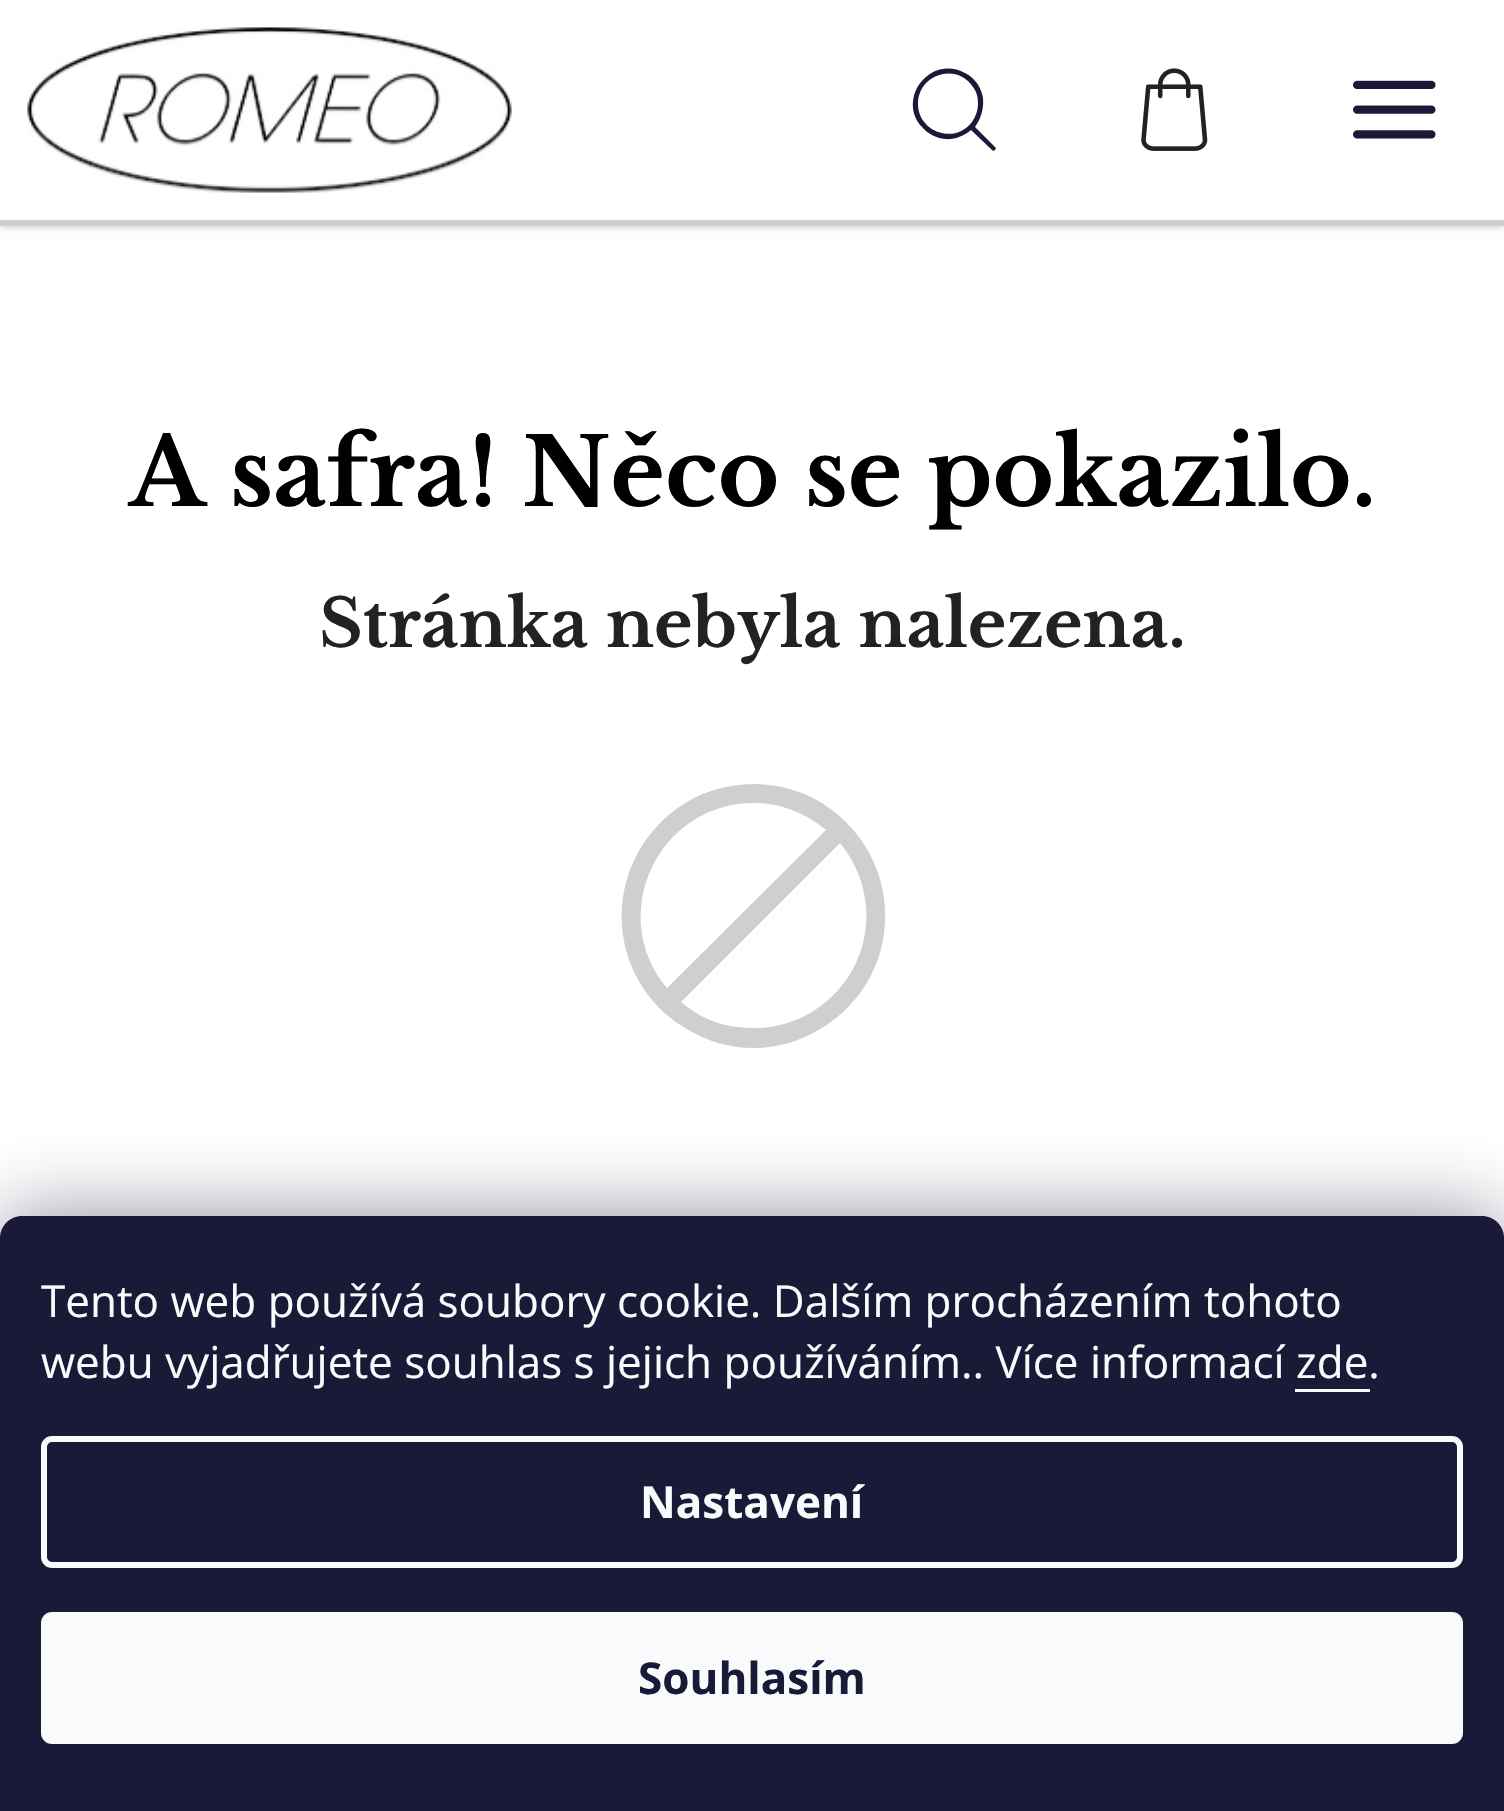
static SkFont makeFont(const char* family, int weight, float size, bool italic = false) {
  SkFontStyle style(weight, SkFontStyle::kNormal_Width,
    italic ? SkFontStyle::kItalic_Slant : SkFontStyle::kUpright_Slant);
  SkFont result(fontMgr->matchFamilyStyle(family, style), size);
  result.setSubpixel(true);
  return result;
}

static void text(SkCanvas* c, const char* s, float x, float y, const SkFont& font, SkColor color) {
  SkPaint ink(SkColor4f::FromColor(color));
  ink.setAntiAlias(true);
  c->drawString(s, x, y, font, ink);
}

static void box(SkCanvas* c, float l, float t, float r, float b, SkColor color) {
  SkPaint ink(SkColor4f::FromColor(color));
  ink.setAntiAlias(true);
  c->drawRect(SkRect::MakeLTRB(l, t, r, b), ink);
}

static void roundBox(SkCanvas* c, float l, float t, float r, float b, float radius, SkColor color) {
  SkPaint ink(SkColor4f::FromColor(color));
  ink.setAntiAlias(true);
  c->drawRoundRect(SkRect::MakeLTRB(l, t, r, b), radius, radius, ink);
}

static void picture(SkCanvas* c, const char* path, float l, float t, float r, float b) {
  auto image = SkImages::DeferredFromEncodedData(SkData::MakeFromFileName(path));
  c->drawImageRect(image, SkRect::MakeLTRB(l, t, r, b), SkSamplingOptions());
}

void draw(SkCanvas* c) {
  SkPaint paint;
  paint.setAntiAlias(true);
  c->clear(0xffffffff);
  paint.setColor(0x29000000);
  paint.setMaskFilter(SkMaskFilter::MakeBlur(kNormal_SkBlurStyle, 3));
  c->drawRect(SkRect::MakeLTRB(0, 3, 1504, 228), paint);
  paint.setMaskFilter(nullptr);
  box(c, 0, 0, 1504, 220, 0xffffffff);
  picture(c, "img_01.png", 27, 27, 512, 193);
  paint.setColor(0xff1a1937);
  c->drawPath(SkPathBuilder().moveTo(995, 147).lineTo(975, 127).cubicTo(981, 119, 984, 108, 983, 98).cubicTo(981, 87, 975, 78, 965, 73).cubicTo(931, 54, 896, 98, 922, 127).cubicTo(928, 134, 936, 138, 945, 139).cubicTo(954, 140, 964, 136, 971, 130).lineTo(992, 150).cubicTo(994, 152, 997, 149, 995, 147).close().moveTo(918, 104).cubicTo(918, 74, 957, 62, 973, 87).cubicTo(977, 92, 978, 98, 978, 104).cubicTo(978, 110, 976, 116, 972, 122).cubicTo(955, 145, 918, 132, 918, 104).close().detach(), paint);
  picture(c, "img_02.png", 1141, 68, 1208, 151);
  picture(c, "img_03.png", 1353, 80, 1436, 139);
  box(c, 0, 220, 1504, 226, 0xffcfcfcf);
  SkFont face1 = makeFont("Libre Baskerville", 700, 93.5f);
  text(c, "A safra! Něco se pokazilo.", 129, 506, face1, 0xff000000);
  SkFont face2 = makeFont("Libre Baskerville", 700, 66);
  text(c, "Stránka nebyla nalezena.", 319, 647, face2, 0xff222222);
  paint.setColor(0xffcfcfcf);
  c->drawPath(SkPathBuilder().moveTo(754, 784).cubicTo(725, 784, 697, 793, 675, 810).cubicTo(600, 867, 605, 979, 685, 1028).cubicTo(706, 1041, 729, 1048, 754, 1048).cubicTo(778, 1048, 801, 1041, 822, 1028).cubicTo(902, 979, 907, 867, 832, 810).cubicTo(810, 793, 782, 784, 754, 784).close().moveTo(754, 803).cubicTo(780, 803, 806, 813, 826, 830).lineTo(667, 988).cubicTo(606, 915, 658, 803, 754, 803).close().moveTo(840, 843).cubicTo(855, 861, 864, 883, 866, 906).cubicTo(872, 978, 810, 1037, 738, 1027).cubicTo(717, 1025, 697, 1016, 681, 1002).close().detach(), paint);
  paint.setColor(0x801b1939);
  paint.setMaskFilter(SkMaskFilter::MakeBlur(kNormal_SkBlurStyle, 41));
  c->drawRoundRect(SkRect::MakeLTRB(0, 1216, 1504, 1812), 22, 22, paint);
  paint.setMaskFilter(nullptr);
  paint.setColor(0xff1a1937);
  c->drawPath(SkPathBuilder().moveTo(22, 1216).lineTo(1482, 1216).cubicTo(1494, 1216, 1504, 1226, 1504, 1238).lineTo(1504, 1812).lineTo(0, 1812).lineTo(0, 1238).cubicTo(0, 1226, 10, 1216, 22, 1216).close().detach(), paint);
  SkFont face3 = makeFont("Open Sans", 400, 44);
  text(c, "Tento web používá soubory cookie. Dalším procházením tohoto", 41, 1317, face3, 0xfff8fafb);
  text(c, "webu vyjadřujete souhlas s jejich používáním.. Více informací zde.", 41, 1378, face3, 0xfff8fafb);
  box(c, 1295, 1389, 1370, 1392, 0xfff8fafb);
  paint.setStyle(SkPaint::kStroke_Style);
  paint.setStrokeWidth(6);
  paint.setColor(0xfff8fafb);
  c->drawRoundRect(SkRect::MakeLTRB(44, 1439, 1460, 1565), 8, 8, paint);
  SkFont face4 = makeFont("Open Sans", 700, 44);
  text(c, "Nastavení", 640, 1518, face4, 0xfff8fafb);
  roundBox(c, 41, 1612, 1463, 1744, 11, 0xfff8fafb);
  text(c, "Souhlasím", 638, 1694, face4, 0xff1a1937);
}
